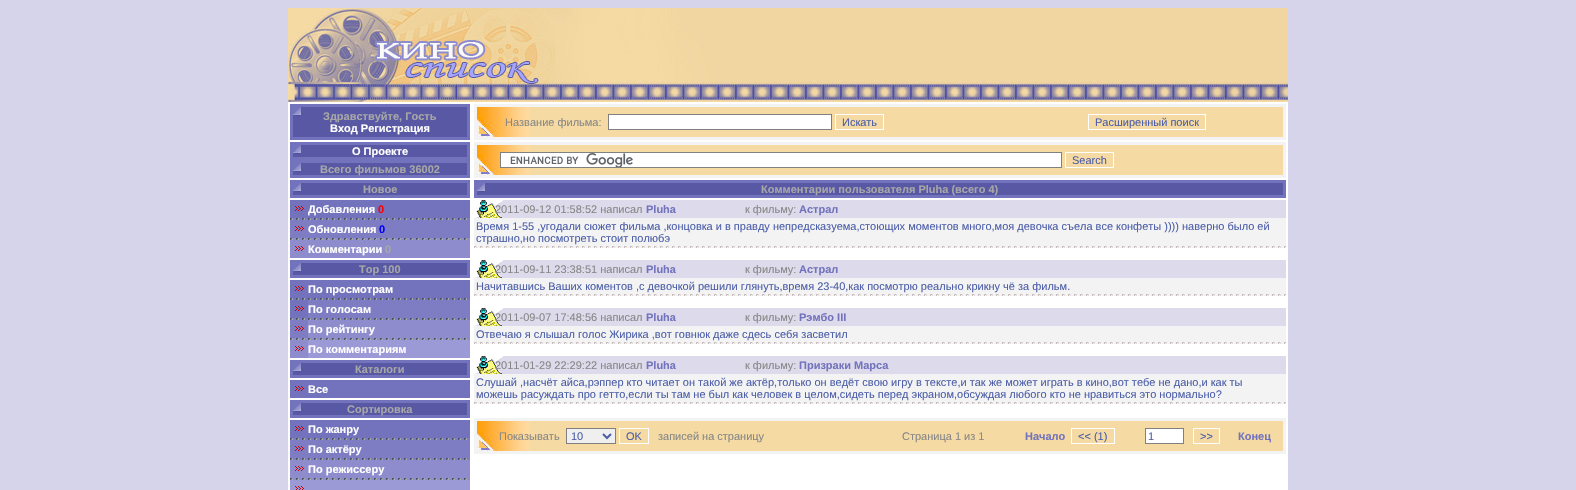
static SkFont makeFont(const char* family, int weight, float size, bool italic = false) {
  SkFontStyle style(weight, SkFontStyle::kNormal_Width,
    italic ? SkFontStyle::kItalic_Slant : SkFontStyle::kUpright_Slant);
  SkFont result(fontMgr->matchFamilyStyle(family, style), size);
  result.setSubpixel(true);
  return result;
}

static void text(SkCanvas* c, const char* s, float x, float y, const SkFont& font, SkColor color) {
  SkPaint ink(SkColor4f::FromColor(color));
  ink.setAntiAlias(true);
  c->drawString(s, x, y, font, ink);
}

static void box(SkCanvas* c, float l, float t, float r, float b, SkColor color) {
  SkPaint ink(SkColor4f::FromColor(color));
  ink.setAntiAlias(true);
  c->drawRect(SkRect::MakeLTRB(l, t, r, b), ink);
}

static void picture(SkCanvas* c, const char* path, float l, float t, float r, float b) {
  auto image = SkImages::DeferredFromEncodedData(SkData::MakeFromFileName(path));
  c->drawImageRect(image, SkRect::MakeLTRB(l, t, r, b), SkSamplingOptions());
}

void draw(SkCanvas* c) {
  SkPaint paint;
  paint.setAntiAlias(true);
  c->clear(0xffd6d4ea);
  picture(c, "img_01.png", 288, 8, 1288, 102);
  box(c, 288, 102, 1288, 490, 0xffffffff);
  box(c, 290, 104, 470, 140, 0xff7373bd);
  box(c, 293, 107, 467, 137, 0xff5858a5);
  picture(c, "img_02.png", 293, 107, 301, 116);
  SkFont face1 = makeFont("Liberation Sans", 700, 11);
  text(c, "Здравствуйте, Гость", 323, 120, face1, 0xffa7a7a7);
  text(c, "Вход Регистрация", 330, 132, face1, 0xffffffff);
  box(c, 290, 142, 470, 178, 0xff7373bd);
  box(c, 293, 145, 467, 157, 0xff5858a5);
  picture(c, "img_02.png", 293, 145, 301, 154);
  text(c, "О Проекте", 352, 155, face1, 0xffffffff);
  box(c, 293, 163, 467, 175, 0xff5858a5);
  picture(c, "img_02.png", 293, 163, 301, 172);
  text(c, "Всего фильмов 36002", 320, 173, face1, 0xffa7a7a7);
  box(c, 290, 180, 470, 198, 0xff7373bd);
  box(c, 293, 183, 467, 195, 0xff5858a5);
  picture(c, "img_02.png", 293, 183, 301, 192);
  text(c, "Новое", 363, 193, face1, 0xffa7a7a7);
  box(c, 290, 200, 470, 218, 0xff7373bd);
  picture(c, "img_03.png", 295, 206, 304, 211);
  text(c, "Добавления", 308, 213, face1, 0xffffffff);
  text(c, "0", 378, 213, face1, 0xffff0000);
  box(c, 290, 218, 470, 220, 0xff7e7dc4);
  picture(c, "img_04.png", 290, 218, 467, 220);
  box(c, 290, 220, 470, 238, 0xff7e7dc4);
  picture(c, "img_05.png", 295, 226, 304, 231);
  text(c, "Обновления", 308, 233, face1, 0xffffffff);
  text(c, "0", 379, 233, face1, 0xff0000ff);
  box(c, 290, 238, 470, 240, 0xff8e8ccd);
  picture(c, "img_06.png", 290, 238, 467, 240);
  box(c, 290, 240, 470, 258, 0xff8e8ccd);
  picture(c, "img_07.png", 295, 246, 304, 251);
  text(c, "Комментарии", 308, 253, face1, 0xffffffff);
  text(c, "0", 385, 253, face1, 0xffa7a7a7);
  box(c, 290, 260, 470, 278, 0xff7373bd);
  box(c, 293, 263, 467, 275, 0xff5858a5);
  picture(c, "img_02.png", 293, 263, 301, 272);
  text(c, "Top 100", 359, 273, face1, 0xffa7a7a7);
  box(c, 290, 280, 470, 300, 0xff7373bd);
  picture(c, "img_03.png", 295, 286, 304, 291);
  text(c, "По просмотрам", 308, 293, face1, 0xffffffff);
  picture(c, "img_08.png", 290, 298, 467, 300);
  box(c, 290, 300, 308, 318, 0xff7373bd);
  picture(c, "img_03.png", 295, 306, 304, 311);
  box(c, 308, 300, 470, 318, 0xff7e7dc4);
  text(c, "По голосам", 308, 313, face1, 0xffffffff);
  box(c, 290, 318, 470, 320, 0xff7e7dc4);
  picture(c, "img_04.png", 290, 318, 467, 320);
  box(c, 290, 320, 308, 338, 0xff7e7dc4);
  picture(c, "img_05.png", 295, 326, 304, 331);
  box(c, 308, 320, 470, 338, 0xff8e8ccd);
  text(c, "По рейтингу", 308, 333, face1, 0xffffffff);
  box(c, 290, 338, 470, 340, 0xff8e8ccd);
  picture(c, "img_06.png", 290, 338, 467, 340);
  box(c, 290, 340, 308, 358, 0xff8e8ccd);
  picture(c, "img_07.png", 295, 346, 304, 351);
  box(c, 308, 340, 470, 358, 0xff9c99d7);
  text(c, "По комментариям", 308, 353, face1, 0xffffffff);
  box(c, 290, 360, 470, 378, 0xff7373bd);
  box(c, 293, 363, 467, 375, 0xff5858a5);
  picture(c, "img_02.png", 293, 363, 301, 372);
  text(c, "Каталоги", 355, 373, face1, 0xffa7a7a7);
  box(c, 290, 380, 470, 398, 0xff7373bd);
  picture(c, "img_03.png", 295, 386, 304, 391);
  text(c, "Все", 308, 393, face1, 0xffffffff);
  box(c, 290, 400, 470, 418, 0xff7373bd);
  box(c, 293, 403, 467, 415, 0xff5858a5);
  picture(c, "img_02.png", 293, 403, 301, 412);
  text(c, "Сортировка", 347, 413, face1, 0xffa7a7a7);
  box(c, 290, 420, 470, 438, 0xff7373bd);
  picture(c, "img_03.png", 295, 426, 304, 431);
  text(c, "По жанру", 308, 433, face1, 0xffffffff);
  box(c, 290, 438, 470, 440, 0xff7e7dc4);
  picture(c, "img_04.png", 290, 438, 467, 440);
  box(c, 290, 440, 470, 460, 0xff7e7dc4);
  picture(c, "img_05.png", 295, 446, 304, 451);
  text(c, "По актёру", 308, 453, face1, 0xffffffff);
  picture(c, "img_04.png", 290, 458, 467, 460);
  box(c, 290, 460, 470, 480, 0xff8e8ccd);
  picture(c, "img_07.png", 295, 466, 304, 471);
  text(c, "По режиссеру", 308, 473, face1, 0xffffffff);
  picture(c, "img_06.png", 290, 478, 467, 480);
  box(c, 290, 480, 470, 490, 0xff9c99d7);
  picture(c, "img_09.png", 295, 486, 304, 490);
  box(c, 474, 104, 1286, 140, 0xfff3f3f3);
  box(c, 530, 107, 1283, 137, 0xfff5daa3);
  picture(c, "img_10.png", 477, 107, 530, 137);
  SkFont face2 = makeFont("Liberation Sans", 400, 11);
  text(c, "Название фильма:", 505, 126, face2, 0xff878787);
  paint.setColor(0xffffffff);
  c->drawRect(SkRect::MakeLTRB(608.5f, 114.5f, 831.5f, 129.5f), paint);
  paint.setStyle(SkPaint::kStroke_Style);
  paint.setStrokeWidth(1);
  paint.setColor(0xff808080);
  c->drawRect(SkRect::MakeLTRB(608.5f, 114.5f, 831.5f, 129.5f), paint);
  paint.setColor(0xffffffff);
  c->drawRect(SkRect::MakeLTRB(835.5f, 114.5f, 883.5f, 129.5f), paint);
  text(c, "Искать", 842, 126, face2, 0xff4c5ea8);
  c->drawRect(SkRect::MakeLTRB(1088.5f, 114.5f, 1205.5f, 129.5f), paint);
  text(c, "Расширенный поиск", 1095, 126, face2, 0xff4c5ea8);
  box(c, 474, 142, 1286, 178, 0xfff3f3f3);
  box(c, 530, 145, 1283, 175, 0xfff5daa3);
  picture(c, "img_10.png", 477, 145, 530, 175);
  box(c, 501, 153, 1061, 167, 0xffffffff);
  picture(c, "img_11.png", 510, 153, 633, 167);
  paint.setColor(0xff808080);
  c->drawRect(SkRect::MakeLTRB(500.5f, 152.5f, 1061.5f, 167.5f), paint);
  paint.setColor(0xffffffff);
  c->drawRect(SkRect::MakeLTRB(1065.5f, 152.5f, 1113.5f, 167.5f), paint);
  text(c, "Search", 1072, 164, face2, 0xff4c5ea8);
  box(c, 474, 180, 1286, 198, 0xff7373bd);
  box(c, 477, 183, 1283, 195, 0xff5858a5);
  picture(c, "img_02.png", 477, 183, 485, 192);
  text(c, "Комментарии пользователя Pluha (всего 4)", 761, 193, face1, 0xffa7a7a7);
  box(c, 503, 200, 1286, 218, 0xffdddbeb);
  picture(c, "img_12.png", 474, 200, 503, 218);
  text(c, "2011-09-12 01:58:52 написал", 495, 213, face2, 0xff878787);
  text(c, "Pluha", 646, 213, face1, 0xff7373bd);
  text(c, "к фильму:", 745, 213, face2, 0xff878787);
  text(c, "Астрал", 799, 213, face1, 0xff7373bd);
  box(c, 474, 218, 1286, 248, 0xfff3f3f3);
  text(c, "Время 1-55 ,угодали сюжет фильма ,концовка и в правду непредсказуема,стоющих моментов много,моя девочка съела все конфеты )))) наверно было ей", 476, 230, face2, 0xff4c5ea8);
  text(c, "страшно,но посмотреть стоит полюбэ", 476, 242, face2, 0xff4c5ea8);
  picture(c, "img_13.png", 474, 246, 1286, 248);
  box(c, 503, 260, 1286, 278, 0xffdddbeb);
  picture(c, "img_12.png", 474, 260, 503, 278);
  text(c, "2011-09-11 23:38:51 написал", 495, 273, face2, 0xff878787);
  text(c, "Pluha", 646, 273, face1, 0xff7373bd);
  text(c, "к фильму:", 745, 273, face2, 0xff878787);
  text(c, "Астрал", 799, 273, face1, 0xff7373bd);
  box(c, 474, 278, 1286, 296, 0xfff3f3f3);
  text(c, "Начитавшись Ваших коментов ,с девочкой решили глянуть,время 23-40,как посмотрю реально крикну чё за фильм.", 476, 290, face2, 0xff4c5ea8);
  picture(c, "img_13.png", 474, 294, 1286, 296);
  box(c, 503, 308, 1286, 326, 0xffdddbeb);
  picture(c, "img_12.png", 474, 308, 503, 326);
  text(c, "2011-09-07 17:48:56 написал", 495, 321, face2, 0xff878787);
  text(c, "Pluha", 646, 321, face1, 0xff7373bd);
  text(c, "к фильму:", 745, 321, face2, 0xff878787);
  text(c, "Рэмбо III", 799, 321, face1, 0xff7373bd);
  box(c, 474, 326, 1286, 344, 0xfff3f3f3);
  text(c, "Отвечаю я слышал голос Жирика ,вот говнюк даже сдесь себя засветил", 476, 338, face2, 0xff4c5ea8);
  picture(c, "img_13.png", 474, 342, 1286, 344);
  box(c, 503, 356, 1286, 374, 0xffdddbeb);
  picture(c, "img_12.png", 474, 356, 503, 374);
  text(c, "2011-01-29 22:29:22 написал", 495, 369, face2, 0xff878787);
  text(c, "Pluha", 646, 369, face1, 0xff7373bd);
  text(c, "к фильму:", 745, 369, face2, 0xff878787);
  text(c, "Призраки Марса", 799, 369, face1, 0xff7373bd);
  box(c, 474, 374, 1286, 404, 0xfff3f3f3);
  text(c, "Слушай ,насчёт айса,рэппер кто читает он такой же актёр,только он ведёт свою игру в тексте,и так же может играть в кино,вот тебе не дано,и как ты", 476, 386, face2, 0xff4c5ea8);
  text(c, "можешь расуждать про гетто,если ты там не был как человек в целом,сидеть перед экраном,обсуждая любого кто не нравиться это нормально?", 476, 398, face2, 0xff4c5ea8);
  picture(c, "img_13.png", 474, 402, 1286, 404);
  box(c, 474, 418, 1286, 454, 0xfff3f3f3);
  box(c, 530, 421, 1283, 451, 0xfff5daa3);
  picture(c, "img_10.png", 477, 421, 530, 451);
  text(c, "Показывать", 499, 440, face2, 0xff878787);
  paint.setStyle(SkPaint::kFill_Style);
  paint.setColor(0xffefefef);
  c->drawRect(SkRect::MakeLTRB(566.5f, 428.5f, 615.5f, 443.5f), paint);
  paint.setStyle(SkPaint::kStroke_Style);
  paint.setColor(0xff808080);
  c->drawRect(SkRect::MakeLTRB(566.5f, 428.5f, 615.5f, 443.5f), paint);
  paint.setStrokeWidth(2);
  paint.setColor(0xff4c5ea8);
  c->drawPath(SkPathBuilder().moveTo(603, 434).lineTo(607, 438).lineTo(611, 434).detach(), paint);
  text(c, "10", 571, 440, face2, 0xff4c5ea8);
  paint.setStrokeWidth(1);
  paint.setColor(0xffffffff);
  c->drawRect(SkRect::MakeLTRB(619.5f, 428.5f, 648.5f, 443.5f), paint);
  text(c, "OK", 626, 440, face2, 0xff4c5ea8);
  text(c, "записей на страницу", 658, 440, face2, 0xff878787);
  text(c, "Страница 1 из 1", 902, 440, face2, 0xff878787);
  text(c, "Начало", 1025, 440, face1, 0xff7373bd);
  c->drawRect(SkRect::MakeLTRB(1071.5f, 428.5f, 1114.5f, 443.5f), paint);
  text(c, "<< (1)", 1078, 440, face2, 0xff4c5ea8);
  paint.setStyle(SkPaint::kFill_Style);
  c->drawRect(SkRect::MakeLTRB(1145.5f, 428.5f, 1183.5f, 443.5f), paint);
  paint.setStyle(SkPaint::kStroke_Style);
  paint.setColor(0xff808080);
  c->drawRect(SkRect::MakeLTRB(1145.5f, 428.5f, 1183.5f, 443.5f), paint);
  text(c, "1", 1148, 440, face2, 0xff4c5ea8);
  paint.setColor(0xffffffff);
  c->drawRect(SkRect::MakeLTRB(1193.5f, 428.5f, 1219.5f, 443.5f), paint);
  text(c, ">>", 1200, 440, face2, 0xff4c5ea8);
  text(c, "Конец", 1238, 440, face1, 0xff7373bd);
}
